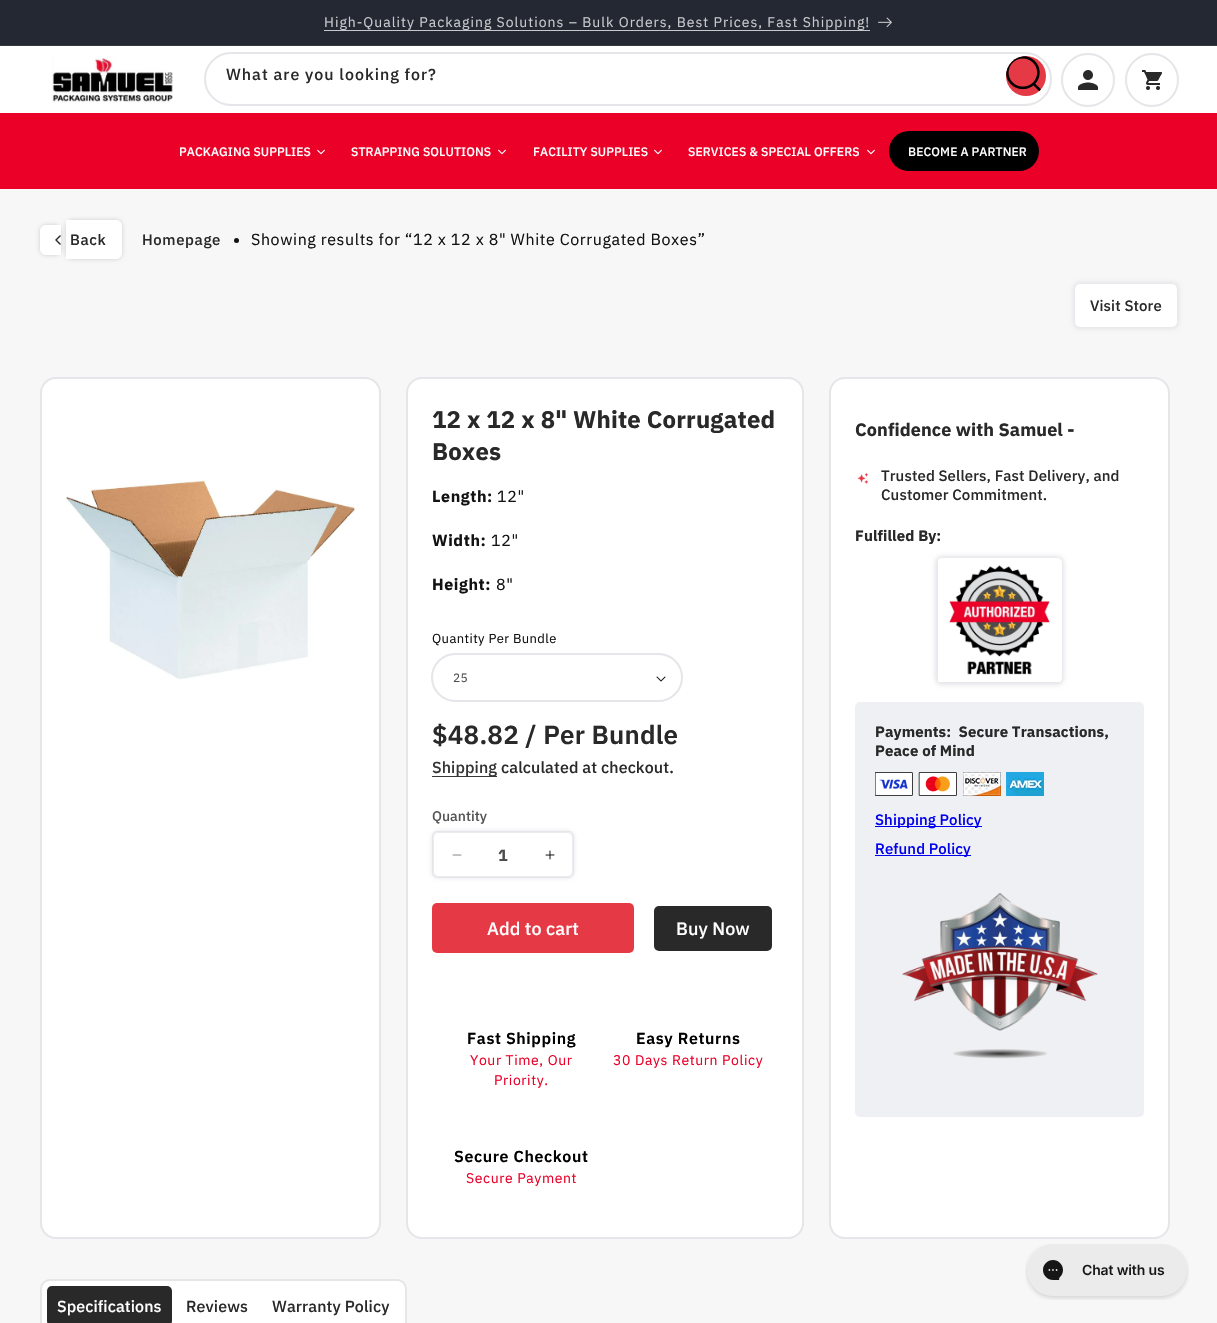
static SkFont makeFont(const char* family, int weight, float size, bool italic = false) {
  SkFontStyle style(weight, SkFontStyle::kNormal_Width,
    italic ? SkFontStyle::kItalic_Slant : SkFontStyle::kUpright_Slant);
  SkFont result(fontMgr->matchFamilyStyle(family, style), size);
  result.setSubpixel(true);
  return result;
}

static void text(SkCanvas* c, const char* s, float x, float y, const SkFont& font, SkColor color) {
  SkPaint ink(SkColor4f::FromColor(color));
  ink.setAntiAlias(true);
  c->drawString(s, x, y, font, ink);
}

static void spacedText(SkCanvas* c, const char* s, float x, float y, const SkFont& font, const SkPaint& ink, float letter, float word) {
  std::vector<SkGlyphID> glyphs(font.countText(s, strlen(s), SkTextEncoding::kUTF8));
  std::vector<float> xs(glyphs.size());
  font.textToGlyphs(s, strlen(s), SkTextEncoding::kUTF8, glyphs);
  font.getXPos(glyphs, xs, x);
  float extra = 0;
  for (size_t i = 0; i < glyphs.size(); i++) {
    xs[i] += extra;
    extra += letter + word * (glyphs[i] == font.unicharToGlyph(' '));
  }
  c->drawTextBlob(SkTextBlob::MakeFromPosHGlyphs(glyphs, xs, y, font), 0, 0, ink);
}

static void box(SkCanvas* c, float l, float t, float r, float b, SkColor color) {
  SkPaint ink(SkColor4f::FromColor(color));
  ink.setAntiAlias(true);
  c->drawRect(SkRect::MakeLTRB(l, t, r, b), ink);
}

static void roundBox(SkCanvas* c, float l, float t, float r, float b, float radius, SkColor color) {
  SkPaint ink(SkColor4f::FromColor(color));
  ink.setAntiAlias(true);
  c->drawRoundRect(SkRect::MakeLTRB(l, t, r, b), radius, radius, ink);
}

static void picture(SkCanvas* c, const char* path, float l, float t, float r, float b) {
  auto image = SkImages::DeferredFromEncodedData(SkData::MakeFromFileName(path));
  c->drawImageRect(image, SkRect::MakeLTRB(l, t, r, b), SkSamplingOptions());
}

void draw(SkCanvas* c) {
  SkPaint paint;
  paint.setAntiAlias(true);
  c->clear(0xfff7f7f7);
  box(c, 0, 0, 1217, 45, 0xff242833);
  box(c, 0, 45, 1217, 46, 0xff363943);
  SkFont face1 = makeFont("IBM Plex Sans", 400, 14);
  paint.setColor(0xffc8c9cc);
  spacedText(c, "High-Quality Packaging Solutions – Bulk Orders, Best Prices, Fast Shipping!", 324, 27, face1, paint, 1, 0);
  box(c, 324, 30, 870, 31, 0xffc8c9cc);
  picture(c, "img_01.png", 878, 17, 892, 28);
  box(c, 0, 46, 1217, 113, 0xffffffff);
  picture(c, "img_02.png", 52, 57, 173, 103);
  paint.setColor(0xffe63946);
  c->drawCircle(1026, 76, 20, paint);
  picture(c, "img_03.png", 1006, 56, 1041, 91);
  paint.setStyle(SkPaint::kStroke_Style);
  paint.setStrokeWidth(2);
  paint.setColor(0xffe5e5ea);
  c->drawRoundRect(SkRect::MakeLTRB(205, 53, 1051, 105), 26, 26, paint);
  SkFont face2 = makeFont("IBM Plex Sans", 500, 16);
  paint.setStyle(SkPaint::kFill_Style);
  paint.setColor(0xff292929);
  spacedText(c, "What are you looking for?", 226, 80, face2, paint, 1, 0);
  paint.setStyle(SkPaint::kStroke_Style);
  paint.setColor(0xffe5e5ea);
  c->drawCircle(1088, 80, 26, paint);
  picture(c, "img_04.png", 1078, 70, 1098, 90);
  c->drawCircle(1152, 80, 26, paint);
  picture(c, "img_05.png", 1142, 70, 1162, 90);
  box(c, 0, 113, 1217, 189, 0xffeb0027);
  SkFont face3 = makeFont("IBM Plex Sans", 500, 12.2f);
  paint.setStyle(SkPaint::kFill_Style);
  paint.setColor(0xffffffff);
  spacedText(c, "PACKAGING SUPPLIES", 179, 156, face3, paint, 0.1f, 0);
  picture(c, "img_06.png", 317, 149, 325, 155);
  spacedText(c, "STRAPPING SOLUTIONS", 351, 156, face3, paint, 0.1f, 0);
  picture(c, "img_06.png", 498, 149, 506, 155);
  spacedText(c, "FACILITY SUPPLIES", 533, 156, face3, paint, 0.1f, 0);
  picture(c, "img_06.png", 654, 149, 662, 155);
  spacedText(c, "SERVICES & SPECIAL OFFERS", 688, 156, face3, paint, 0.1f, 0);
  picture(c, "img_06.png", 867, 149, 875, 155);
  roundBox(c, 889, 131, 1039, 171, 20, 0xff000000);
  spacedText(c, "BECOME A PARTNER", 908, 156, face3, paint, 0.1f, 0);
  paint.setColor(0xffcccccc);
  paint.setMaskFilter(SkMaskFilter::MakeBlur(kNormal_SkBlurStyle, 2));
  c->drawRoundRect(SkRect::MakeLTRB(40, 225, 61, 255), 6, 6, paint);
  paint.setMaskFilter(nullptr);
  paint.setColor(0xffffffff);
  c->drawPath(SkPathBuilder().moveTo(46, 225).lineTo(61, 225).lineTo(61, 255).lineTo(46, 255).cubicTo(42.5f, 255, 40, 252.5f, 40, 249).lineTo(40, 231).cubicTo(40, 227.5f, 42.5f, 225, 46, 225).close().detach(), paint);
  paint.setColor(0xffcccccc);
  paint.setMaskFilter(SkMaskFilter::MakeBlur(kNormal_SkBlurStyle, 2));
  c->drawRoundRect(SkRect::MakeLTRB(66, 220, 122, 259), 6, 6, paint);
  paint.setMaskFilter(nullptr);
  picture(c, "img_07.png", 55, 235, 61, 245);
  paint.setColor(0xffffffff);
  c->drawPath(SkPathBuilder().moveTo(66, 220).lineTo(116, 220).cubicTo(119.5f, 220, 122, 222.5f, 122, 226).lineTo(122, 253).cubicTo(122, 256.5f, 119.5f, 259, 116, 259).lineTo(66, 259).close().detach(), paint);
  SkFont face4 = makeFont("IBM Plex Sans", 500, 15);
  paint.setColor(0xff292929);
  spacedText(c, "Back", 70, 245, face4, paint, 0.6f, 0);
  spacedText(c, "Homepage", 142, 245, face4, paint, 0.6f, 0);
  paint.setColor(0xff121212);
  c->drawCircle(236.5f, 240.5f, 2.5f, paint);
  SkFont face5 = makeFont("IBM Plex Sans", 400, 16);
  spacedText(c, "Showing results for “12 x 12 x 8\" White Corrugated Boxes”", 251, 245, face5, paint, 0.6f, 0);
  paint.setColor(0xffe5e5ea);
  paint.setMaskFilter(SkMaskFilter::MakeBlur(kNormal_SkBlurStyle, 2));
  c->drawRoundRect(SkRect::MakeLTRB(1073, 282, 1179, 329), 7, 7, paint);
  paint.setMaskFilter(nullptr);
  roundBox(c, 1075, 284, 1177, 327, 5, 0xffffffff);
  paint.setColor(0xff292929);
  spacedText(c, "Visit Store", 1090, 311, face4, paint, 0.1f, 0);
  paint.setColor(0xffffffff);
  c->drawRoundRect(SkRect::MakeLTRB(41, 378, 380, 1238), 15, 15, paint);
  paint.setStyle(SkPaint::kStroke_Style);
  paint.setColor(0xffe5e5ea);
  c->drawRoundRect(SkRect::MakeLTRB(41, 378, 380, 1238), 15, 15, paint);
  picture(c, "img_08.png", 66, 479, 355, 679);
  paint.setStyle(SkPaint::kFill_Style);
  paint.setColor(0xffffffff);
  c->drawRoundRect(SkRect::MakeLTRB(407, 378, 803, 1238), 15, 15, paint);
  paint.setStyle(SkPaint::kStroke_Style);
  paint.setColor(0xffe5e5ea);
  c->drawRoundRect(SkRect::MakeLTRB(407, 378, 803, 1238), 15, 15, paint);
  SkFont face6 = makeFont("IBM Plex Sans", 700, 24);
  paint.setStyle(SkPaint::kFill_Style);
  paint.setColor(0xff292929);
  spacedText(c, "12 x 12 x 8\" White Corrugated", 432, 428, face6, paint, 0.15f, 0);
  spacedText(c, "Boxes", 432, 460, face6, paint, 0.15f, 0);
  SkFont face7 = makeFont("IBM Plex Sans", 700, 16);
  paint.setColor(0xff121212);
  spacedText(c, "Length:", 432, 502, face7, paint, 0.6f, 0);
  spacedText(c, "12\"", 497, 502, face5, paint, 0.6f, 0);
  spacedText(c, "Width:", 432, 546, face7, paint, 0.6f, 0);
  spacedText(c, "12\"", 491, 546, face5, paint, 0.6f, 0);
  spacedText(c, "Height:", 432, 590, face7, paint, 0.6f, 0);
  spacedText(c, "8\"", 496, 590, face5, paint, 0.6f, 0);
  SkFont face8 = makeFont("IBM Plex Sans", 400, 13);
  spacedText(c, "Quantity Per Bundle", 432, 643, face8, paint, 0.4f, 0);
  picture(c, "img_09.png", 656, 676, 666, 682);
  paint.setStyle(SkPaint::kStroke_Style);
  paint.setColor(0xffe5e5ea);
  c->drawRoundRect(SkRect::MakeLTRB(432, 654, 682, 701), 23.5f, 23.5f, paint);
  SkFont face9 = makeFont("IBM Plex Sans", 400, 12);
  paint.setStyle(SkPaint::kFill_Style);
  paint.setColor(0xff4d4d4d);
  spacedText(c, "25", 453, 682, face9, paint, 0.4f, 0);
  SkFont face10 = makeFont("IBM Plex Sans", 600, 26);
  paint.setColor(0xff292929);
  spacedText(c, "$48.82 / Per Bundle", 432, 744, face10, paint, 0.2f, 0);
  box(c, 432, 776, 497, 777, 0xff363636);
  paint.setColor(0xff353535);
  spacedText(c, "Shipping", 432, 773, face2, paint, 0.1f, 0);
  paint.setColor(0xff292929);
  spacedText(c, "calculated at checkout.", 501, 773, face2, paint, 0.1f, 0);
  SkFont face11 = makeFont("IBM Plex Sans", 500, 14);
  text(c, "Quantity", 432, 821, face11, 0xff545454);
  paint.setStyle(SkPaint::kStroke_Style);
  paint.setStrokeWidth(1);
  paint.setColor(0xffe5e5ea);
  c->drawRoundRect(SkRect::MakeLTRB(432.5f, 831.5f, 573.5f, 877.5f), 4.5f, 4.5f, paint);
  picture(c, "img_10.png", 452, 854, 462, 856);
  picture(c, "img_11.png", 545, 850, 555, 860);
  c->save();
  c->clipPath(SkPathBuilder(SkPathFillType::kEvenOdd).moveTo(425, 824).lineTo(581, 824).lineTo(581, 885).lineTo(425, 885).close().moveTo(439, 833).lineTo(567, 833).cubicTo(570, 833, 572, 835, 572, 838).lineTo(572, 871).cubicTo(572, 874, 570, 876, 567, 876).lineTo(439, 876).cubicTo(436, 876, 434, 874, 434, 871).lineTo(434, 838).cubicTo(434, 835, 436, 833, 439, 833).close().detach(), true);
  paint.setStyle(SkPaint::kFill_Style);
  paint.setMaskFilter(SkMaskFilter::MakeBlur(kNormal_SkBlurStyle, 2));
  c->drawRoundRect(SkRect::MakeLTRB(432, 831, 574, 878), 7, 7, paint);
  paint.setMaskFilter(nullptr);
  c->restore();
  paint.setColor(0xff4d4d4d);
  spacedText(c, "1", 498, 861, face7, paint, 0.1f, 0);
  roundBox(c, 432, 903, 634, 953, 5, 0xffe63946);
  SkFont face12 = makeFont("IBM Plex Sans", 500, 18);
  paint.setColor(0xffffffff);
  spacedText(c, "Add to cart", 487, 935, face12, paint, 0.1f, 0);
  roundBox(c, 654, 906, 772, 951, 5, 0xff292929);
  spacedText(c, "Buy Now", 676, 935, face12, paint, 0.1f, 0);
  SkFont face13 = makeFont("IBM Plex Sans", 600, 16);
  paint.setColor(0xff000000);
  spacedText(c, "Fast Shipping", 467, 1044, face13, paint, 0.6f, 0);
  paint.setColor(0xffeb0028);
  spacedText(c, "Your Time, Our", 470, 1065, face1, paint, 0.6f, 0);
  spacedText(c, "Priority.", 494, 1085, face1, paint, 0.6f, 0);
  paint.setColor(0xff000000);
  spacedText(c, "Easy Returns", 636, 1044, face13, paint, 0.6f, 0);
  paint.setColor(0xffeb0028);
  spacedText(c, "30 Days Return Policy", 613, 1065, face1, paint, 0.6f, 0);
  paint.setColor(0xff000000);
  spacedText(c, "Secure Checkout", 454, 1162, face13, paint, 0.6f, 0);
  paint.setColor(0xffeb0028);
  spacedText(c, "Secure Payment", 466, 1183, face1, paint, 0.6f, 0);
  paint.setColor(0xffffffff);
  c->drawRoundRect(SkRect::MakeLTRB(830, 378, 1169, 1238), 15, 15, paint);
  paint.setStyle(SkPaint::kStroke_Style);
  paint.setStrokeWidth(2);
  paint.setColor(0xffe5e5ea);
  c->drawRoundRect(SkRect::MakeLTRB(830, 378, 1169, 1238), 15, 15, paint);
  SkFont face14 = makeFont("IBM Plex Sans", 700, 18);
  paint.setStyle(SkPaint::kFill_Style);
  paint.setColor(0xff292929);
  spacedText(c, "Confidence with Samuel -", 855, 436, face14, paint, 0.1f, 0);
  picture(c, "img_12.png", 857, 472, 869, 484);
  spacedText(c, "Trusted Sellers, Fast Delivery, and", 881, 481, face4, paint, 0.1f, 0);
  spacedText(c, "Customer Commitment.", 881, 500, face4, paint, 0.1f, 0);
  SkFont face15 = makeFont("IBM Plex Sans", 700, 15);
  spacedText(c, "Fulfilled By:", 855, 541, face15, paint, 0.1f, 0);
  paint.setColor(0xffe5e5ea);
  paint.setMaskFilter(SkMaskFilter::MakeBlur(kNormal_SkBlurStyle, 2));
  c->drawRoundRect(SkRect::MakeLTRB(935, 556, 1064, 685), 7, 7, paint);
  paint.setMaskFilter(nullptr);
  picture(c, "img_13.png", 938, 558, 1062, 682);
  roundBox(c, 855, 702, 1144, 1117, 5, 0xffeef0f3);
  paint.setColor(0xff292929);
  spacedText(c, "Payments:  Secure Transactions,", 875, 737, face15, paint, 0.1f, 0);
  spacedText(c, "Peace of Mind", 875, 756, face15, paint, 0.1f, 0);
  picture(c, "img_14.png", 875, 772, 913, 796);
  picture(c, "img_15.png", 918, 772, 957, 796);
  picture(c, "img_16.png", 963, 772, 1001, 796);
  picture(c, "img_17.png", 1006, 772, 1044, 796);
  box(c, 875, 826, 982, 827, 0xff0000ee);
  paint.setColor(0xff0000ee);
  spacedText(c, "Shipping Policy", 875, 825, face4, paint, 0.1f, 0);
  box(c, 875, 855, 971, 856, 0xff0000ee);
  spacedText(c, "Refund Policy", 875, 854, face4, paint, 0.1f, 0);
  picture(c, "img_18.png", 902, 893, 1098, 1059);
  paint.setColor(0xffffffff);
  c->drawRoundRect(SkRect::MakeLTRB(41, 1280, 406, 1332), 9, 9, paint);
  paint.setStyle(SkPaint::kStroke_Style);
  paint.setColor(0xffe5e5ea);
  c->drawRoundRect(SkRect::MakeLTRB(41, 1280, 406, 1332), 9, 9, paint);
  roundBox(c, 47, 1286, 172, 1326, 5, 0xff292929);
  paint.setStyle(SkPaint::kFill_Style);
  paint.setColor(0xffffffff);
  spacedText(c, "Specifications", 57, 1312, face2, paint, 0.1f, 0);
  paint.setColor(0xff292929);
  spacedText(c, "Reviews", 186, 1312, face2, paint, 0.1f, 0);
  spacedText(c, "Warranty Policy", 272, 1312, face2, paint, 0.1f, 0);
  picture(c, "img_19.png", 1025, 1244, 1189, 1300);
}
